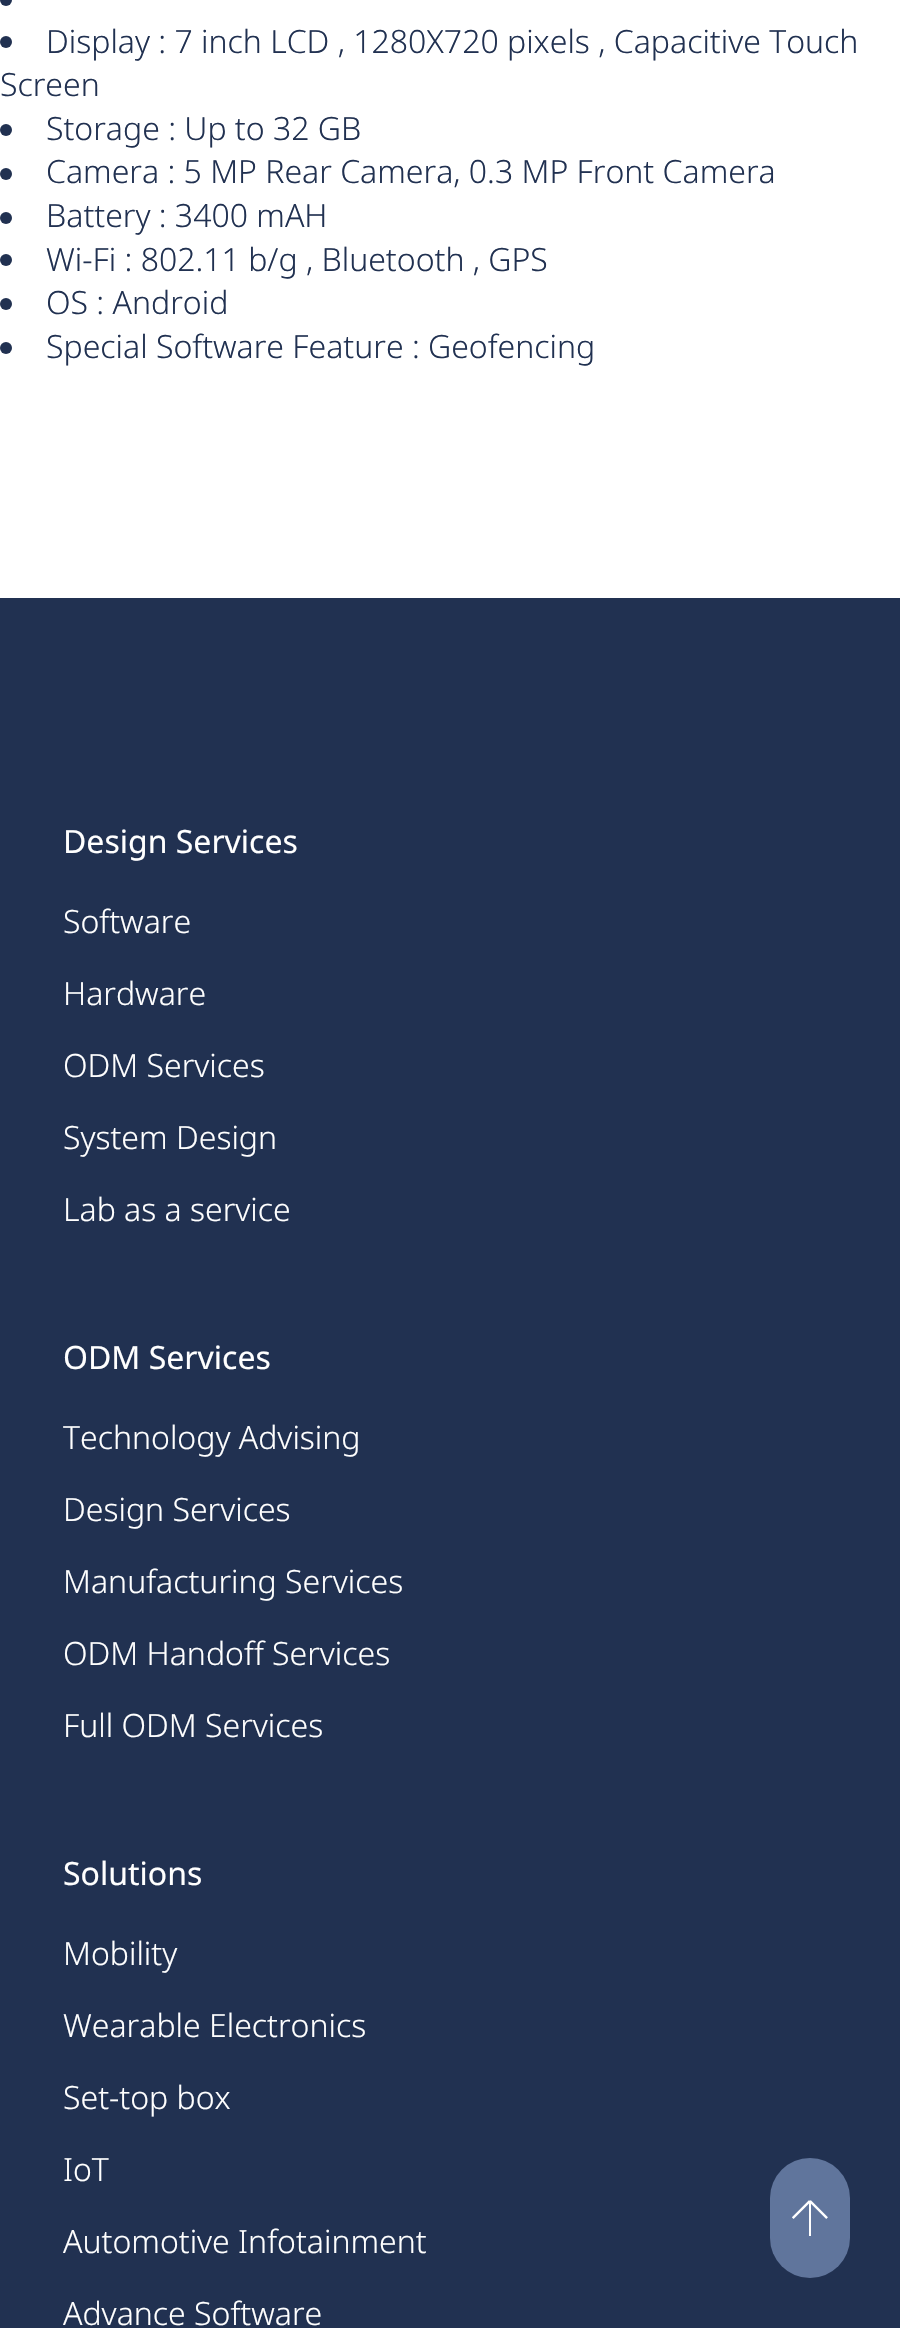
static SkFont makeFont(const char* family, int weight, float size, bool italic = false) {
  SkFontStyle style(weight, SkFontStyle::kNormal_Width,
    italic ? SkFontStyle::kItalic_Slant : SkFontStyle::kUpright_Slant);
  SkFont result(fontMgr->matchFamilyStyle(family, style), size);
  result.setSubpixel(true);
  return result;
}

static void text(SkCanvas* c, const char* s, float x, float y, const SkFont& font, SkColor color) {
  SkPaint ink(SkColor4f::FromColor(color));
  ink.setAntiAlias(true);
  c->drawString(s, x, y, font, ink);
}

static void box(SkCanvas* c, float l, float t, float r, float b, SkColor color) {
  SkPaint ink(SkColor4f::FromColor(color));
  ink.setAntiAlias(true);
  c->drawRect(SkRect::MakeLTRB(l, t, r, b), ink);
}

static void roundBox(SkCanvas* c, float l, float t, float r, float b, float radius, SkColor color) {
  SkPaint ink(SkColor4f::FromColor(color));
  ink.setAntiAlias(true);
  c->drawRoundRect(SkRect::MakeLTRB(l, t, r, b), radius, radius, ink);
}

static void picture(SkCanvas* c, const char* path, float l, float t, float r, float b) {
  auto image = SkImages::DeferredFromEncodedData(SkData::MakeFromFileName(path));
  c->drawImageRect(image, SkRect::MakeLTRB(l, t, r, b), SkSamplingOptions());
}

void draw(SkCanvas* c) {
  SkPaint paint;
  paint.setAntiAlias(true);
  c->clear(0xffffffff);
  paint.setColor(0xff213151);
  c->drawCircle(6, 0, 6, paint);
  c->drawCircle(6, 42, 6, paint);
  SkFont face1 = makeFont("Noto Sans", 300, 32);
  text(c, "Display : 7 inch LCD , 1280X720 pixels , Capacitive Touch", 46, 53, face1, 0xff213151);
  text(c, "Screen", 0, 96, face1, 0xff213151);
  c->drawCircle(6, 130, 6, paint);
  text(c, "Storage : Up to 32 GB", 46, 140, face1, 0xff213151);
  c->drawCircle(6, 174, 6, paint);
  text(c, "Camera : 5 MP Rear Camera, 0.3 MP Front Camera", 46, 183, face1, 0xff213151);
  c->drawCircle(6, 218, 6, paint);
  text(c, "Battery : 3400 mAH", 46, 227, face1, 0xff213151);
  c->drawCircle(6, 260, 6, paint);
  text(c, "Wi-Fi : 802.11 b/g , Bluetooth , GPS", 46, 271, face1, 0xff213151);
  c->drawCircle(6, 304, 6, paint);
  text(c, "OS : Android", 46, 314, face1, 0xff213151);
  c->drawCircle(6, 348, 6, paint);
  text(c, "Special Software Feature : Geofencing", 46, 358, face1, 0xff213151);
  box(c, 0, 598, 900, 2328, 0xff213151);
  SkFont face2 = makeFont("Noto Sans", 400, 32);
  text(c, "Design Services", 63, 853, face2, 0xffffffff);
  text(c, "Software", 63, 933, face1, 0xffffffff);
  text(c, "Hardware", 63, 1005, face1, 0xffffffff);
  text(c, "ODM Services", 63, 1077, face1, 0xffffffff);
  text(c, "System Design", 63, 1149, face1, 0xffffffff);
  text(c, "Lab as a service", 63, 1221, face1, 0xffffffff);
  text(c, "ODM Services", 63, 1369, face2, 0xffffffff);
  text(c, "Technology Advising", 63, 1449, face1, 0xffffffff);
  text(c, "Design Services", 63, 1521, face1, 0xffffffff);
  text(c, "Manufacturing Services", 63, 1593, face1, 0xffffffff);
  text(c, "ODM Handoff Services", 63, 1665, face1, 0xffffffff);
  text(c, "Full ODM Services", 63, 1737, face1, 0xffffffff);
  text(c, "Solutions", 63, 1885, face2, 0xffffffff);
  text(c, "Mobility", 63, 1965, face1, 0xffffffff);
  text(c, "Wearable Electronics", 63, 2037, face1, 0xffffffff);
  text(c, "Set-top box", 63, 2109, face1, 0xffffffff);
  text(c, "IoT", 63, 2181, face1, 0xffffffff);
  text(c, "Automotive Infotainment", 63, 2253, face1, 0xffffffff);
  text(c, "Advance Software", 63, 2325, face1, 0xffffffff);
  roundBox(c, 770, 2158, 850, 2278, 40, 0xff60759c);
  picture(c, "img_01.png", 792, 2200, 828, 2236);
}
